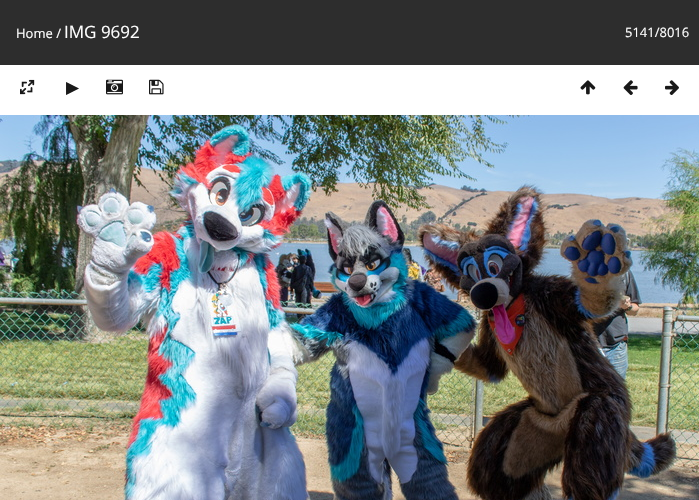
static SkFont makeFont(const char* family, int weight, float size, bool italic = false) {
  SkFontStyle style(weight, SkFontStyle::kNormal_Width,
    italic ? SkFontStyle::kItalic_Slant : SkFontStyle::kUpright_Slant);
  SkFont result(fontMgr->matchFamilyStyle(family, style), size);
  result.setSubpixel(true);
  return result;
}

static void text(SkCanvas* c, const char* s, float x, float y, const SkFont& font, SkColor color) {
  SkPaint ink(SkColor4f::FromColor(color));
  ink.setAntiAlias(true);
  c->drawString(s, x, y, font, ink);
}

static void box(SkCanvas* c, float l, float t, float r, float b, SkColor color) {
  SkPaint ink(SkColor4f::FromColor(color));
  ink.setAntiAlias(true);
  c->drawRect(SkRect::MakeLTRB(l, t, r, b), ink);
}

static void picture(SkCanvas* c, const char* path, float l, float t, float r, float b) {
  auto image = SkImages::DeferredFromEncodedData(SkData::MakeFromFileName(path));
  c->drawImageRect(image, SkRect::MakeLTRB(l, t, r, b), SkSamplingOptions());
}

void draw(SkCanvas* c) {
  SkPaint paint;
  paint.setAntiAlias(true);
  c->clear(0xffffffff);
  box(c, 0, 0, 699, 65, 0xff2d2d2d);
  SkFont face1 = makeFont("Open Sans", 400, 13);
  text(c, "Home /", 16, 38, face1, 0xffffffff);
  SkFont face2 = makeFont("Open Sans", 400, 17);
  text(c, "IMG 9692", 64, 38, face2, 0xffffffff);
  text(c, "5141/8016", 625, 37, face1, 0xffffffff);
  picture(c, "img_01.png", 20, 79, 35, 95);
  SkFont face3 = makeFont("DejaVu Sans", 400, 17);
  text(c, "▶", 66, 93, face3, 0xff1a1a1a);
  picture(c, "img_02.png", 106, 79, 123, 95);
  picture(c, "img_03.png", 149, 79, 164, 95);
  picture(c, "img_04.png", 580, 80, 596, 95);
  picture(c, "img_05.png", 623, 80, 638, 95);
  picture(c, "img_06.png", 665, 80, 679, 95);
  picture(c, "img_07.png", 0, 115, 699, 500);
}
